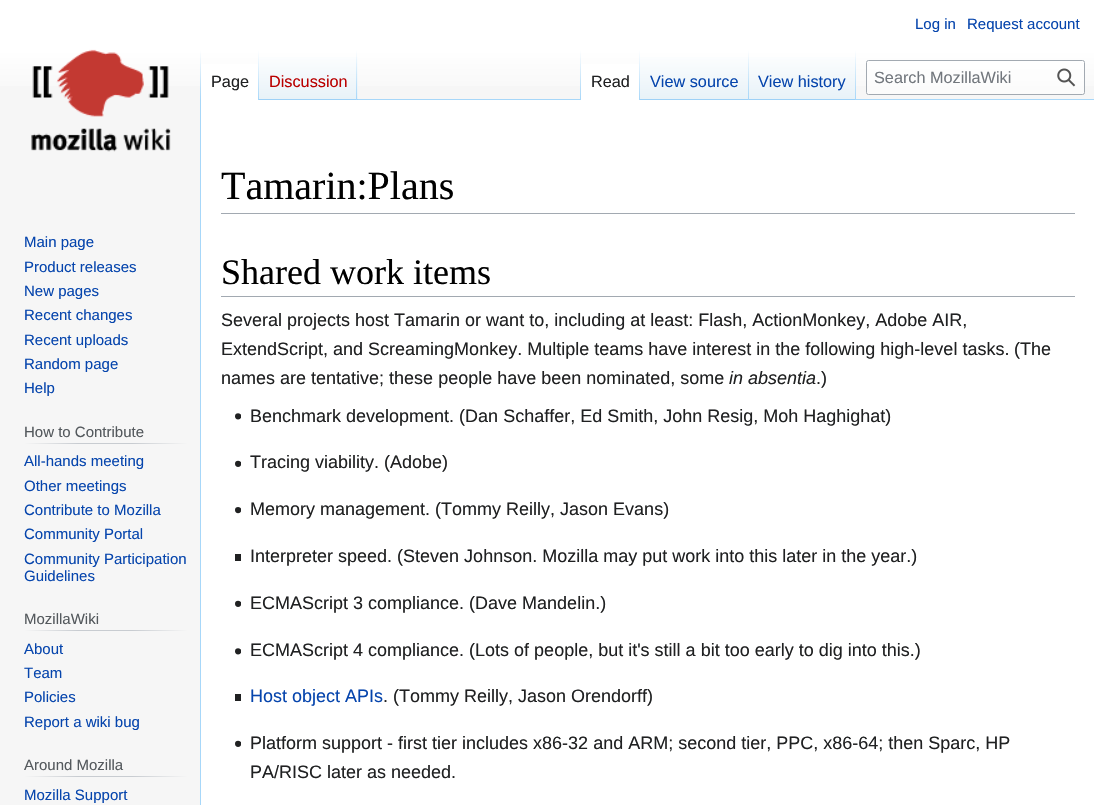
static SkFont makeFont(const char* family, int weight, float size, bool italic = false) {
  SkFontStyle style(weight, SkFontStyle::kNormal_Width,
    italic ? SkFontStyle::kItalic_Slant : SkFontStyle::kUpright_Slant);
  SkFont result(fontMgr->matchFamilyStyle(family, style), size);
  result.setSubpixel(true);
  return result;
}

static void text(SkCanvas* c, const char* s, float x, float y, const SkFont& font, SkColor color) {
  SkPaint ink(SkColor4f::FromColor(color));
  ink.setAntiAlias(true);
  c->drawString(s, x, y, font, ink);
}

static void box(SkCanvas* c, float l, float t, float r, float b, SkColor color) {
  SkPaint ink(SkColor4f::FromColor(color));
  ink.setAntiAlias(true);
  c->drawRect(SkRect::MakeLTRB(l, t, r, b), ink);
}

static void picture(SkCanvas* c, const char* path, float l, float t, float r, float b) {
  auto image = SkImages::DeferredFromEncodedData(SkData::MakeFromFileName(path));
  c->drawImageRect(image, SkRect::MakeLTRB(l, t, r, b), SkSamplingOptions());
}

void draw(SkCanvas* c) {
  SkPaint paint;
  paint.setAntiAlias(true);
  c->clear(0xfff6f6f6);
  {
    const SkColor colors[] = {0xffffffff, 0xfff6f6f6};
    const float stops[] = {0.5f, 1};
    const SkPoint ends[] = {{548, 0}, {548, 100}};
    paint.setShader(SkGradientShader::MakeLinear(ends, colors, stops, 2, SkTileMode::kClamp));
    paint.setAlpha(255);
  }
  c->drawRect(SkRect::MakeLTRB(0, 0, 1094, 86), paint);
  SkFont face1 = makeFont("Liberation Sans", 400, 15);
  text(c, "Log in", 915, 29, face1, 0xff0645ad);
  text(c, "Request account", 967, 29, face1, 0xff0645ad);
  box(c, 200, 99, 201, 805, 0xffa7d7f9);
  {
    const SkColor colors[] = {0x00a7d7f9, 0xffa7d7f9};
    const float stops[] = {0, 1};
    const SkPoint ends[] = {{201, 50}, {201, 100}};
    paint.setShader(SkGradientShader::MakeLinear(ends, colors, stops, 2, SkTileMode::kClamp));
    paint.setAlpha(255);
  }
  c->drawRect(SkRect::MakeLTRB(200, 50, 201, 100), paint);
  box(c, 201, 64, 258, 100, 0xffffffff);
  {
    const SkColor colors[] = {0xffffffff, 0xffa7d7f9};
    const float stops[] = {0, 1};
    const SkPoint ends[] = {{258, 50}, {258, 100}};
    paint.setShader(SkGradientShader::MakeLinear(ends, colors, stops, 2, SkTileMode::kClamp));
    paint.setAlpha(255);
  }
  c->drawRect(SkRect::MakeLTRB(258, 50, 259, 100), paint);
  SkFont face2 = makeFont("Liberation Sans", 400, 16.25f);
  text(c, "Page", 211, 87, face2, 0xff202122);
  {
    const SkColor colors[] = {0xff77c1f6, 0xffe8f2f8, 0xffffffff};
    const float stops[] = {0, 0.03f, 1};
    const SkPoint ends[] = {{308, 100}, {308, 50}};
    paint.setShader(SkGradientShader::MakeLinear(ends, colors, stops, 3, SkTileMode::kClamp));
    paint.setAlpha(255);
  }
  c->drawRect(SkRect::MakeLTRB(259, 57, 358, 100), paint);
  {
    const SkColor colors[] = {0x00a7d7f9, 0xffa7d7f9};
    const float stops[] = {0, 1};
    const SkPoint ends[] = {{357, 50}, {357, 100}};
    paint.setShader(SkGradientShader::MakeLinear(ends, colors, stops, 2, SkTileMode::kClamp));
    paint.setAlpha(255);
  }
  c->drawRect(SkRect::MakeLTRB(356, 50, 357, 100), paint);
  text(c, "Discussion", 269, 87, face2, 0xffba0000);
  box(c, 358, 99, 1094, 100, 0xffa7d7f9);
  {
    const SkColor colors[] = {0x00a7d7f9, 0xffa7d7f9};
    const float stops[] = {0, 1};
    const SkPoint ends[] = {{581, 50}, {581, 100}};
    paint.setShader(SkGradientShader::MakeLinear(ends, colors, stops, 2, SkTileMode::kClamp));
    paint.setAlpha(255);
  }
  c->drawRect(SkRect::MakeLTRB(580, 50, 581, 100), paint);
  box(c, 581, 64, 639, 100, 0xffffffff);
  {
    const SkColor colors[] = {0xffffffff, 0xffa7d7f9};
    const float stops[] = {0, 1};
    const SkPoint ends[] = {{639, 50}, {639, 100}};
    paint.setShader(SkGradientShader::MakeLinear(ends, colors, stops, 2, SkTileMode::kClamp));
    paint.setAlpha(255);
  }
  c->drawRect(SkRect::MakeLTRB(639, 50, 640, 100), paint);
  text(c, "Read", 591, 87, face2, 0xff202122);
  {
    const SkColor colors[] = {0xff77c1f6, 0xffe8f2f8, 0xffffffff};
    const float stops[] = {0, 0.03f, 1};
    const SkPoint ends[] = {{694, 100}, {694, 50}};
    paint.setShader(SkGradientShader::MakeLinear(ends, colors, stops, 3, SkTileMode::kClamp));
    paint.setAlpha(255);
  }
  c->drawRect(SkRect::MakeLTRB(640, 57, 749, 100), paint);
  {
    const SkColor colors[] = {0x00a7d7f9, 0xffa7d7f9};
    const float stops[] = {0, 1};
    const SkPoint ends[] = {{748, 50}, {748, 100}};
    paint.setShader(SkGradientShader::MakeLinear(ends, colors, stops, 2, SkTileMode::kClamp));
    paint.setAlpha(255);
  }
  c->drawRect(SkRect::MakeLTRB(748, 50, 749, 100), paint);
  text(c, "View source", 650, 87, face2, 0xff0645ad);
  {
    const SkColor colors[] = {0xff77c1f6, 0xffe8f2f8, 0xffffffff};
    const float stops[] = {0, 0.03f, 1};
    const SkPoint ends[] = {{803, 100}, {803, 50}};
    paint.setShader(SkGradientShader::MakeLinear(ends, colors, stops, 3, SkTileMode::kClamp));
    paint.setAlpha(255);
  }
  c->drawRect(SkRect::MakeLTRB(749, 57, 856, 100), paint);
  {
    const SkColor colors[] = {0x00a7d7f9, 0xffa7d7f9};
    const float stops[] = {0, 1};
    const SkPoint ends[] = {{856, 50}, {856, 100}};
    paint.setShader(SkGradientShader::MakeLinear(ends, colors, stops, 2, SkTileMode::kClamp));
    paint.setAlpha(255);
  }
  c->drawRect(SkRect::MakeLTRB(855, 50, 856, 100), paint);
  text(c, "View history", 758, 87, face2, 0xff0645ad);
  paint.setShader(nullptr);
  paint.setColor(0x80ffffff);
  c->drawRoundRect(SkRect::MakeLTRB(866.5f, 60.5f, 1084.5f, 94.5f), 2, 2, paint);
  paint.setStyle(SkPaint::kStroke_Style);
  paint.setStrokeWidth(1);
  paint.setColor(0xffa2a9b1);
  c->drawRoundRect(SkRect::MakeLTRB(866.5f, 60.5f, 1084.5f, 94.5f), 2, 2, paint);
  text(c, "Search MozillaWiki", 874, 83, face2, 0xff72777d);
  picture(c, "img_01.png", 1057, 68, 1076, 87);
  picture(c, "img_02.png", 31, 49, 171, 152);
  text(c, "Main page", 24, 247, face1, 0xff0645ad);
  text(c, "Product releases", 24, 272, face1, 0xff0645ad);
  text(c, "New pages", 24, 296, face1, 0xff0645ad);
  text(c, "Recent changes", 24, 320, face1, 0xff0645ad);
  text(c, "Recent uploads", 24, 345, face1, 0xff0645ad);
  text(c, "Random page", 24, 369, face1, 0xff0645ad);
  text(c, "Help", 24, 393, face1, 0xff0645ad);
  paint.setStyle(SkPaint::kFill_Style);
  {
    const SkColor colors[] = {0xfff6f6f6, 0xffc8ccd1, 0xffc8ccd1, 0xfff6f6f6};
    const float stops[] = {0, 0.33f, 0.66f, 1};
    const SkPoint ends[] = {{24, 443}, {188, 443}};
    paint.setShader(SkGradientShader::MakeLinear(ends, colors, stops, 4, SkTileMode::kClamp));
    paint.setAlpha(255);
  }
  c->drawRect(SkRect::MakeLTRB(24, 443, 188, 444), paint);
  text(c, "How to Contribute", 24, 437, face1, 0xff54595d);
  text(c, "All-hands meeting", 24, 466, face1, 0xff0645ad);
  text(c, "Other meetings", 24, 491, face1, 0xff0645ad);
  text(c, "Contribute to Mozilla", 24, 515, face1, 0xff0645ad);
  text(c, "Community Portal", 24, 539, face1, 0xff0645ad);
  text(c, "Community Participation", 24, 564, face1, 0xff0645ad);
  text(c, "Guidelines", 24, 581, face1, 0xff0645ad);
  {
    const SkColor colors[] = {0xfff6f6f6, 0xffc8ccd1, 0xffc8ccd1, 0xfff6f6f6};
    const float stops[] = {0, 0.33f, 0.66f, 1};
    const SkPoint ends[] = {{24, 631}, {188, 631}};
    paint.setShader(SkGradientShader::MakeLinear(ends, colors, stops, 4, SkTileMode::kClamp));
    paint.setAlpha(255);
  }
  c->drawRect(SkRect::MakeLTRB(24, 630, 188, 631), paint);
  text(c, "MozillaWiki", 24, 624, face1, 0xff54595d);
  text(c, "About", 24, 654, face1, 0xff0645ad);
  text(c, "Team", 24, 678, face1, 0xff0645ad);
  text(c, "Policies", 24, 702, face1, 0xff0645ad);
  text(c, "Report a wiki bug", 24, 727, face1, 0xff0645ad);
  {
    const SkColor colors[] = {0xfff6f6f6, 0xffc8ccd1, 0xffc8ccd1, 0xfff6f6f6};
    const float stops[] = {0, 0.33f, 0.66f, 1};
    const SkPoint ends[] = {{24, 777}, {188, 777}};
    paint.setShader(SkGradientShader::MakeLinear(ends, colors, stops, 4, SkTileMode::kClamp));
    paint.setAlpha(255);
  }
  c->drawRect(SkRect::MakeLTRB(24, 776, 188, 777), paint);
  text(c, "Around Mozilla", 24, 770, face1, 0xff54595d);
  text(c, "Mozilla Support", 24, 800, face1, 0xff0645ad);
  box(c, 201, 100, 1094, 805, 0xffffffff);
  box(c, 221, 213, 1075, 214, 0xffa2a9b1);
  SkFont face3 = makeFont("Liberation Serif", 400, 40);
  text(c, "Tamarin:Plans", 221, 199, face3, 0xff000000);
  box(c, 221, 296, 1075, 297, 0xffa2a9b1);
  SkFont face4 = makeFont("Liberation Serif", 400, 36);
  text(c, "Shared work items", 221, 284, face4, 0xff000000);
  SkFont face5 = makeFont("Liberation Sans", 400, 18);
  text(c, "Several projects host Tamarin or want to, including at least: Flash, ActionMonkey, Adobe AIR,", 221, 326, face5, 0xff202122);
  text(c, "ExtendScript, and ScreamingMonkey. Multiple teams have interest in the following high-level tasks.", 221, 355, face5, 0xff202122);
  text(c, "(The", 1014, 355, face5, 0xff202122);
  text(c, "names are tentative; these people have been nominated, some", 221, 384, face5, 0xff202122);
  SkFont face6 = makeFont("Liberation Sans", 400, 18, true);
  text(c, "in absentia", 729, 384, face6, 0xff202122);
  text(c, ".)", 816, 384, face5, 0xff202122);
  picture(c, "img_03.png", 235, 413, 241, 420);
  text(c, "Benchmark development. (Dan Schaffer, Ed Smith, John Resig, Moh Haghighat)", 250, 422, face5, 0xff202122);
  picture(c, "img_04.png", 235, 460, 241, 467);
  text(c, "Tracing viability. (Adobe)", 250, 468, face5, 0xff202122);
  picture(c, "img_05.png", 235, 507, 241, 514);
  text(c, "Memory management. (Tommy Reilly, Jason Evans)", 250, 515, face5, 0xff202122);
  box(c, 235, 554, 241, 561, 0xff202122);
  text(c, "Interpreter speed. (Steven Johnson. Mozilla may put work into this later in the year.)", 250, 562, face5, 0xff202122);
  picture(c, "img_04.png", 235, 600, 241, 607);
  text(c, "ECMAScript 3 compliance. (Dave Mandelin.)", 250, 609, face5, 0xff202122);
  picture(c, "img_03.png", 235, 648, 241, 655);
  text(c, "ECMAScript 4 compliance. (Lots of people, but it's still a bit too early to dig into this.)", 250, 656, face5, 0xff202122);
  box(c, 235, 694, 241, 701, 0xff202122);
  text(c, "Host object APIs", 250, 702, face5, 0xff0645ad);
  text(c, ". (Tommy Reilly, Jason Orendorff)", 383, 702, face5, 0xff202122);
  picture(c, "img_04.png", 235, 740, 241, 747);
  text(c, "Platform support - first tier includes x86-32 and ARM; second tier, PPC, x86-64; then Sparc, HP", 250, 749, face5, 0xff202122);
  text(c, "PA/RISC later as needed.", 250, 778, face5, 0xff202122);
}
